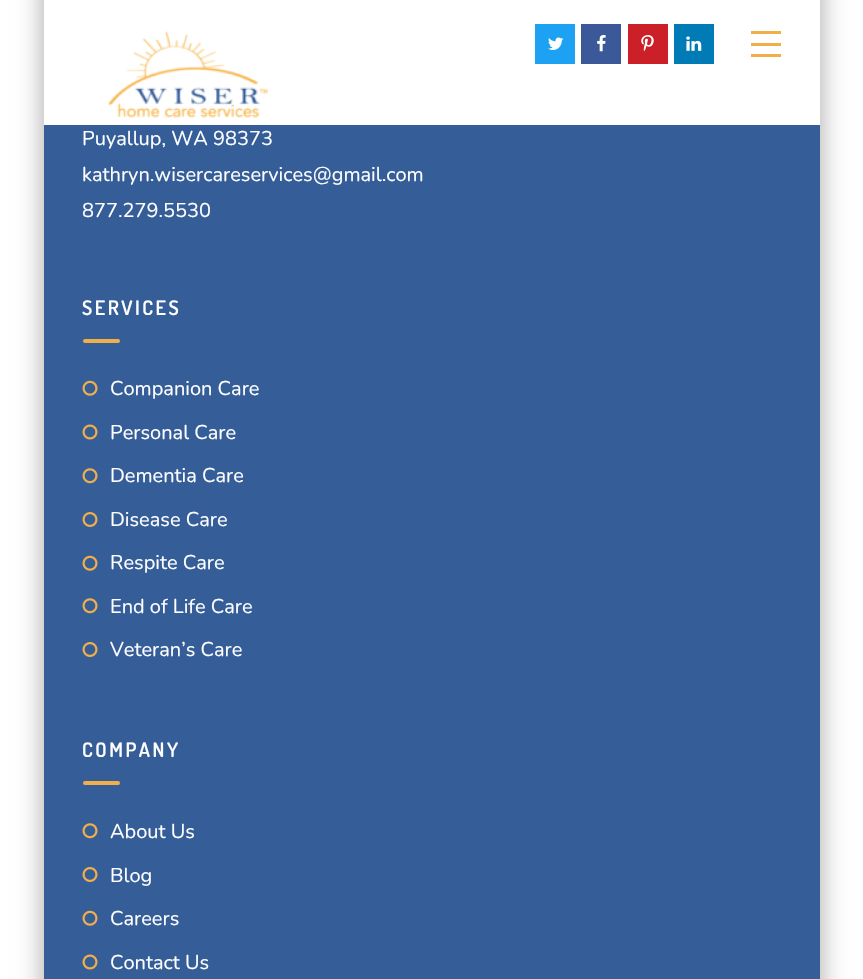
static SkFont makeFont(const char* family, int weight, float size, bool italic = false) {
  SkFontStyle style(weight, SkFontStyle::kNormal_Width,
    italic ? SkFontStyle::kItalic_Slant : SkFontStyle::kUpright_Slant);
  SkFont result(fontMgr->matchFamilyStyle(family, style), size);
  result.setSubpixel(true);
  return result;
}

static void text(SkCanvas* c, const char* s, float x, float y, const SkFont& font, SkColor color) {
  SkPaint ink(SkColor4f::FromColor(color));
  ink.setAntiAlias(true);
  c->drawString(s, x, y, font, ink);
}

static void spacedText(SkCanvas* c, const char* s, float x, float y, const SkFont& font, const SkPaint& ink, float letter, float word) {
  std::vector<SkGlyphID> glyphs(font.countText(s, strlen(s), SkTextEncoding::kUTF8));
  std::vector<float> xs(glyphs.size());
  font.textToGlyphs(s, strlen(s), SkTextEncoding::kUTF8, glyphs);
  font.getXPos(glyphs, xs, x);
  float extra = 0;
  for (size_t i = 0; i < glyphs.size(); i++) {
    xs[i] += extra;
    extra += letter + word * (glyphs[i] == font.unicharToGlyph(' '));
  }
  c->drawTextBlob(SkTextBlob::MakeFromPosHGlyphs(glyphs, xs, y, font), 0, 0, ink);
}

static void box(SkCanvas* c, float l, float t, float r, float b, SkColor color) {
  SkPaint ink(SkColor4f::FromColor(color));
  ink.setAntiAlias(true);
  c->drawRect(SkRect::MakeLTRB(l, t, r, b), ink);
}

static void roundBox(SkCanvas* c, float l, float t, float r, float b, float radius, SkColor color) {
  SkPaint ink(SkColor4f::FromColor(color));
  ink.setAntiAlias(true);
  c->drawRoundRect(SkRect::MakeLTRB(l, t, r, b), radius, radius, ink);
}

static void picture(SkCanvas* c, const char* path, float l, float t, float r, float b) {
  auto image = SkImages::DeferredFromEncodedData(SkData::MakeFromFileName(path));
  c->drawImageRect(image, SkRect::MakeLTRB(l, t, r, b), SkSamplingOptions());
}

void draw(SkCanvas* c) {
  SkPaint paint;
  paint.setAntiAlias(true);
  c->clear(0xffffffff);
  paint.setColor(0x59000000);
  paint.setMaskFilter(SkMaskFilter::MakeBlur(kNormal_SkBlurStyle, 12.5f));
  c->drawRect(SkRect::MakeLTRB(44, -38, 820, 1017), paint);
  paint.setMaskFilter(nullptr);
  box(c, 44, 0, 820, 125, 0xffffffff);
  picture(c, "img_01.png", 107, 31, 268, 118);
  box(c, 535, 24, 575, 64, 0xff1da1f2);
  picture(c, "img_02.png", 548, 37, 564, 50);
  box(c, 581, 24, 621, 64, 0xff3b5998);
  picture(c, "img_03.png", 597, 35, 606, 52);
  box(c, 628, 24, 668, 64, 0xffcb2027);
  picture(c, "img_04.png", 641, 35, 654, 52);
  box(c, 674, 24, 714, 64, 0xff007bb6);
  picture(c, "img_05.png", 686, 36, 702, 51);
  box(c, 751, 31, 781, 34, 0xfff1af49);
  box(c, 751, 54, 781, 57, 0xfff1af49);
  box(c, 751, 43, 781, 46, 0xfff1af49);
  box(c, 44, 125, 820, 979, 0xff355e99);
  SkFont face1 = makeFont("Nunito", 400, 20);
  text(c, "Puyallup, WA 98373", 82, 145, face1, 0xffffffff);
  text(c, "kathryn.wisercareservices@gmail.com", 82, 181, face1, 0xffffffff);
  text(c, "877.279.5530", 82, 217, face1, 0xffffffff);
  SkFont face2 = makeFont("Dosis", 600, 20);
  paint.setColor(0xffffffff);
  spacedText(c, "SERVICES", 82, 315, face2, paint, 2.5f, 0);
  roundBox(c, 83, 339, 120, 343, 2, 0xfff1af49);
  picture(c, "img_06.png", 82, 380, 98, 396);
  text(c, "Companion Care", 110, 395, face1, 0xffffffff);
  picture(c, "img_07.png", 82, 424, 98, 440);
  text(c, "Personal Care", 110, 439, face1, 0xffffffff);
  picture(c, "img_08.png", 82, 468, 98, 484);
  text(c, "Dementia Care", 110, 482, face1, 0xffffffff);
  picture(c, "img_09.png", 82, 512, 98, 527);
  text(c, "Disease Care", 110, 526, face1, 0xffffffff);
  picture(c, "img_06.png", 82, 555, 98, 571);
  text(c, "Respite Care", 110, 569, face1, 0xffffffff);
  picture(c, "img_08.png", 82, 598, 98, 614);
  text(c, "End of Life Care", 110, 613, face1, 0xffffffff);
  picture(c, "img_09.png", 82, 642, 98, 657);
  text(c, "Veteran’s Care", 110, 656, face1, 0xffffffff);
  spacedText(c, "COMPANY", 82, 757, face2, paint, 2.5f, 0);
  roundBox(c, 83, 781, 120, 785, 2, 0xfff1af49);
  picture(c, "img_08.png", 82, 823, 98, 839);
  text(c, "About Us", 110, 838, face1, 0xffffffff);
  picture(c, "img_09.png", 82, 867, 98, 882);
  text(c, "Blog", 110, 882, face1, 0xffffffff);
  picture(c, "img_06.png", 82, 910, 98, 926);
  text(c, "Careers", 110, 925, face1, 0xffffffff);
  picture(c, "img_07.png", 82, 954, 98, 970);
  text(c, "Contact Us", 110, 969, face1, 0xffffffff);
}
